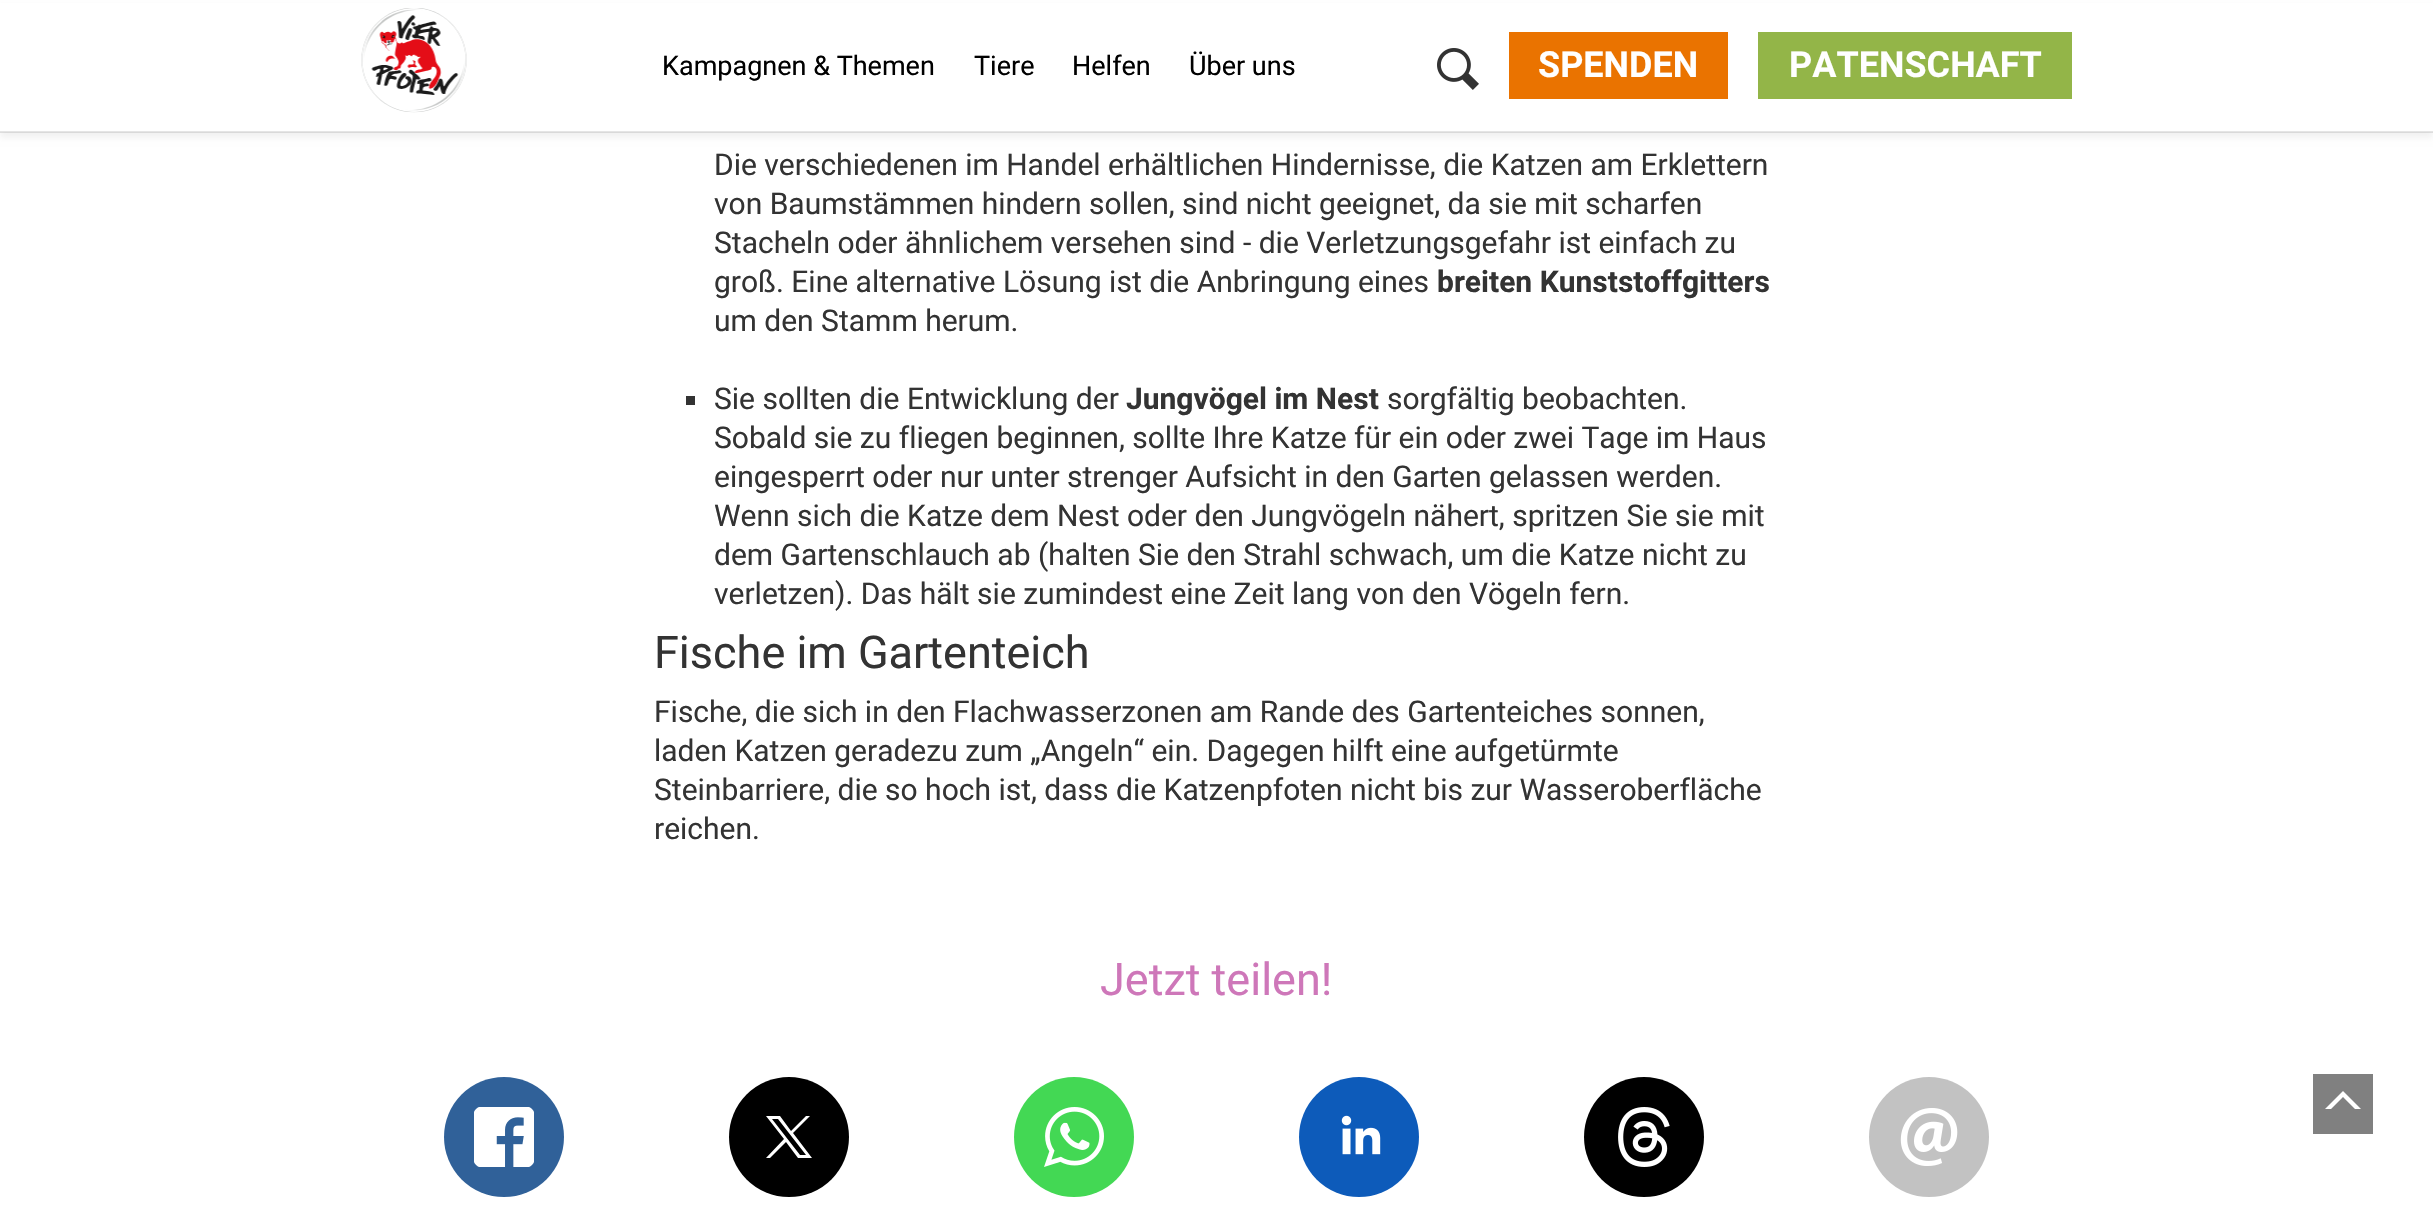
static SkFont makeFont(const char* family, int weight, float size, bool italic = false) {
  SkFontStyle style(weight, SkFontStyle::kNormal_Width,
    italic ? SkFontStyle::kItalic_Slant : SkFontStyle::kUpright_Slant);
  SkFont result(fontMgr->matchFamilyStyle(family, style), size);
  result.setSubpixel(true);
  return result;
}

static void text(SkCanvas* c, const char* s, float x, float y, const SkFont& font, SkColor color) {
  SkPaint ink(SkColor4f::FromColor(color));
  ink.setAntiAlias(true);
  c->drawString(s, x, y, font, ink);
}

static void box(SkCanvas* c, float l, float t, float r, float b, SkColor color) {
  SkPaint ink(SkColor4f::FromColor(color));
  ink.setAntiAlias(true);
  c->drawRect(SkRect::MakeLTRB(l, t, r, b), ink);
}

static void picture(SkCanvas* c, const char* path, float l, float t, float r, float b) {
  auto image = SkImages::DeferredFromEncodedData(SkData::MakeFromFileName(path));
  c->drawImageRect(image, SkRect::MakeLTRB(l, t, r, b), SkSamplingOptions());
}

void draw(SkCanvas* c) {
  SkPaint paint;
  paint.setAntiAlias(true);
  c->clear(0xffffffff);
  paint.setColor(0x0d000000);
  paint.setMaskFilter(SkMaskFilter::MakeBlur(kNormal_SkBlurStyle, 3));
  c->drawRect(SkRect::MakeLTRB(0, 6, 2433, 138), paint);
  paint.setMaskFilter(nullptr);
  box(c, 0, 3, 2433, 132, 0xffffffff);
  box(c, 0, 131, 2433, 133, 0x1a000000);
  picture(c, "img_01.png", 361, 8, 467, 113);
  SkFont face1 = makeFont("Roboto", 400, 27);
  text(c, "Kampagnen & Themen", 662, 75, face1, 0xff000000);
  text(c, "Tiere", 974, 75, face1, 0xff000000);
  text(c, "Helfen", 1072, 75, face1, 0xff000000);
  text(c, "Über uns", 1189, 75, face1, 0xff000000);
  picture(c, "img_02.png", 1437, 48, 1479, 90);
  box(c, 1509, 32, 1728, 99, 0xffea7300);
  SkFont face2 = makeFont("Roboto", 700, 36);
  text(c, "SPENDEN", 1538, 77, face2, 0xffffffff);
  box(c, 1758, 32, 2072, 99, 0xff93b548);
  text(c, "PATENSCHAFT", 1789, 77, face2, 0xffffffff);
  SkFont face3 = makeFont("Roboto", 400, 30);
  text(c, "Die verschiedenen im Handel erhältlichen Hindernisse, die Katzen am Erklettern", 714, 175, face3, 0xff333333);
  text(c, "von Baumstämmen hindern sollen, sind nicht geeignet, da sie mit scharfen", 714, 214, face3, 0xff333333);
  text(c, "Stacheln oder ähnlichem versehen sind - die Verletzungsgefahr ist einfach zu", 714, 253, face3, 0xff333333);
  text(c, "groß. Eine alternative Lösung ist die Anbringung eines", 714, 292, face3, 0xff333333);
  SkFont face4 = makeFont("Roboto", 700, 30);
  text(c, "breiten Kunststoffgitters", 1437, 292, face4, 0xff333333);
  text(c, "um den Stamm herum.", 714, 331, face3, 0xff333333);
  box(c, 686, 396, 695, 405, 0xff333333);
  text(c, "Sie sollten die Entwicklung der", 714, 409, face3, 0xff333333);
  text(c, "Jungvögel im Nest", 1126, 409, face4, 0xff333333);
  text(c, "sorgfältig beobachten.", 1387, 409, face3, 0xff333333);
  text(c, "Sobald sie zu fliegen beginnen, sollte Ihre Katze für ein oder zwei Tage im Haus", 714, 448, face3, 0xff333333);
  text(c, "eingesperrt oder nur unter strenger Aufsicht in den Garten gelassen werden.", 714, 487, face3, 0xff333333);
  text(c, "Wenn sich die Katze dem Nest oder den Jungvögeln nähert, spritzen Sie sie mit", 714, 526, face3, 0xff333333);
  text(c, "dem Gartenschlauch ab (halten Sie den Strahl schwach, um die Katze nicht zu", 714, 565, face3, 0xff333333);
  text(c, "verletzen). Das hält sie zumindest eine Zeit lang von den Vögeln fern.", 714, 604, face3, 0xff333333);
  SkFont face5 = makeFont("Roboto", 400, 45);
  text(c, "Fische im Gartenteich", 654, 668, face5, 0xff333333);
  text(c, "Fische, die sich in den Flachwasserzonen am Rande des Gartenteiches sonnen,", 654, 722, face3, 0xff333333);
  text(c, "laden Katzen geradezu zum „Angeln“ ein. Dagegen hilft eine aufgetürmte", 654, 761, face3, 0xff333333);
  text(c, "Steinbarriere, die so hoch ist, dass die Katzenpfoten nicht bis zur Wasseroberfläche", 654, 800, face3, 0xff333333);
  text(c, "reichen.", 654, 839, face3, 0xff333333);
  text(c, "Jetzt teilen!", 1100, 995, face5, 0xffce77b9);
  paint.setColor(0xff306199);
  c->drawCircle(504, 1137, 60, paint);
  picture(c, "img_03.png", 474, 1107, 534, 1167);
  paint.setColor(0xff000000);
  c->drawCircle(789, 1137, 60, paint);
  paint.setColor(0xffffffff);
  c->drawPath(SkPathBuilder().moveTo(766, 1116).lineTo(784, 1139).lineTo(766, 1158).lineTo(770, 1158).lineTo(786, 1142).lineTo(798, 1158).lineTo(812, 1158).lineTo(793, 1133).lineTo(810, 1116).lineTo(806, 1116).lineTo(791, 1131).lineTo(780, 1116).close().moveTo(772, 1119).lineTo(778, 1119).lineTo(806, 1155).lineTo(800, 1155).close().detach(), paint);
  paint.setColor(0xff43d854);
  c->drawCircle(1074, 1137, 60, paint);
  picture(c, "img_04.png", 1044, 1107, 1104, 1167);
  paint.setColor(0xff0d5bba);
  c->drawCircle(1359, 1137, 60, paint);
  picture(c, "img_05.png", 1341, 1115, 1381, 1155);
  paint.setColor(0xff000000);
  c->drawCircle(1644, 1137, 60, paint);
  picture(c, "img_06.png", 1618, 1107, 1670, 1167);
  paint.setColor(0xffc2c2c2);
  c->drawCircle(1929, 1137, 60, paint);
  picture(c, "img_07.png", 1900, 1108, 1958, 1166);
  box(c, 2313, 1074, 2373, 1134, 0xff808080);
  paint.setColor(0xffffffff);
  c->drawPath(SkPathBuilder().moveTo(2343, 1091).lineTo(2361, 1109).lineTo(2355, 1109).lineTo(2343, 1097).lineTo(2331, 1109).lineTo(2325, 1109).close().detach(), paint);
}
